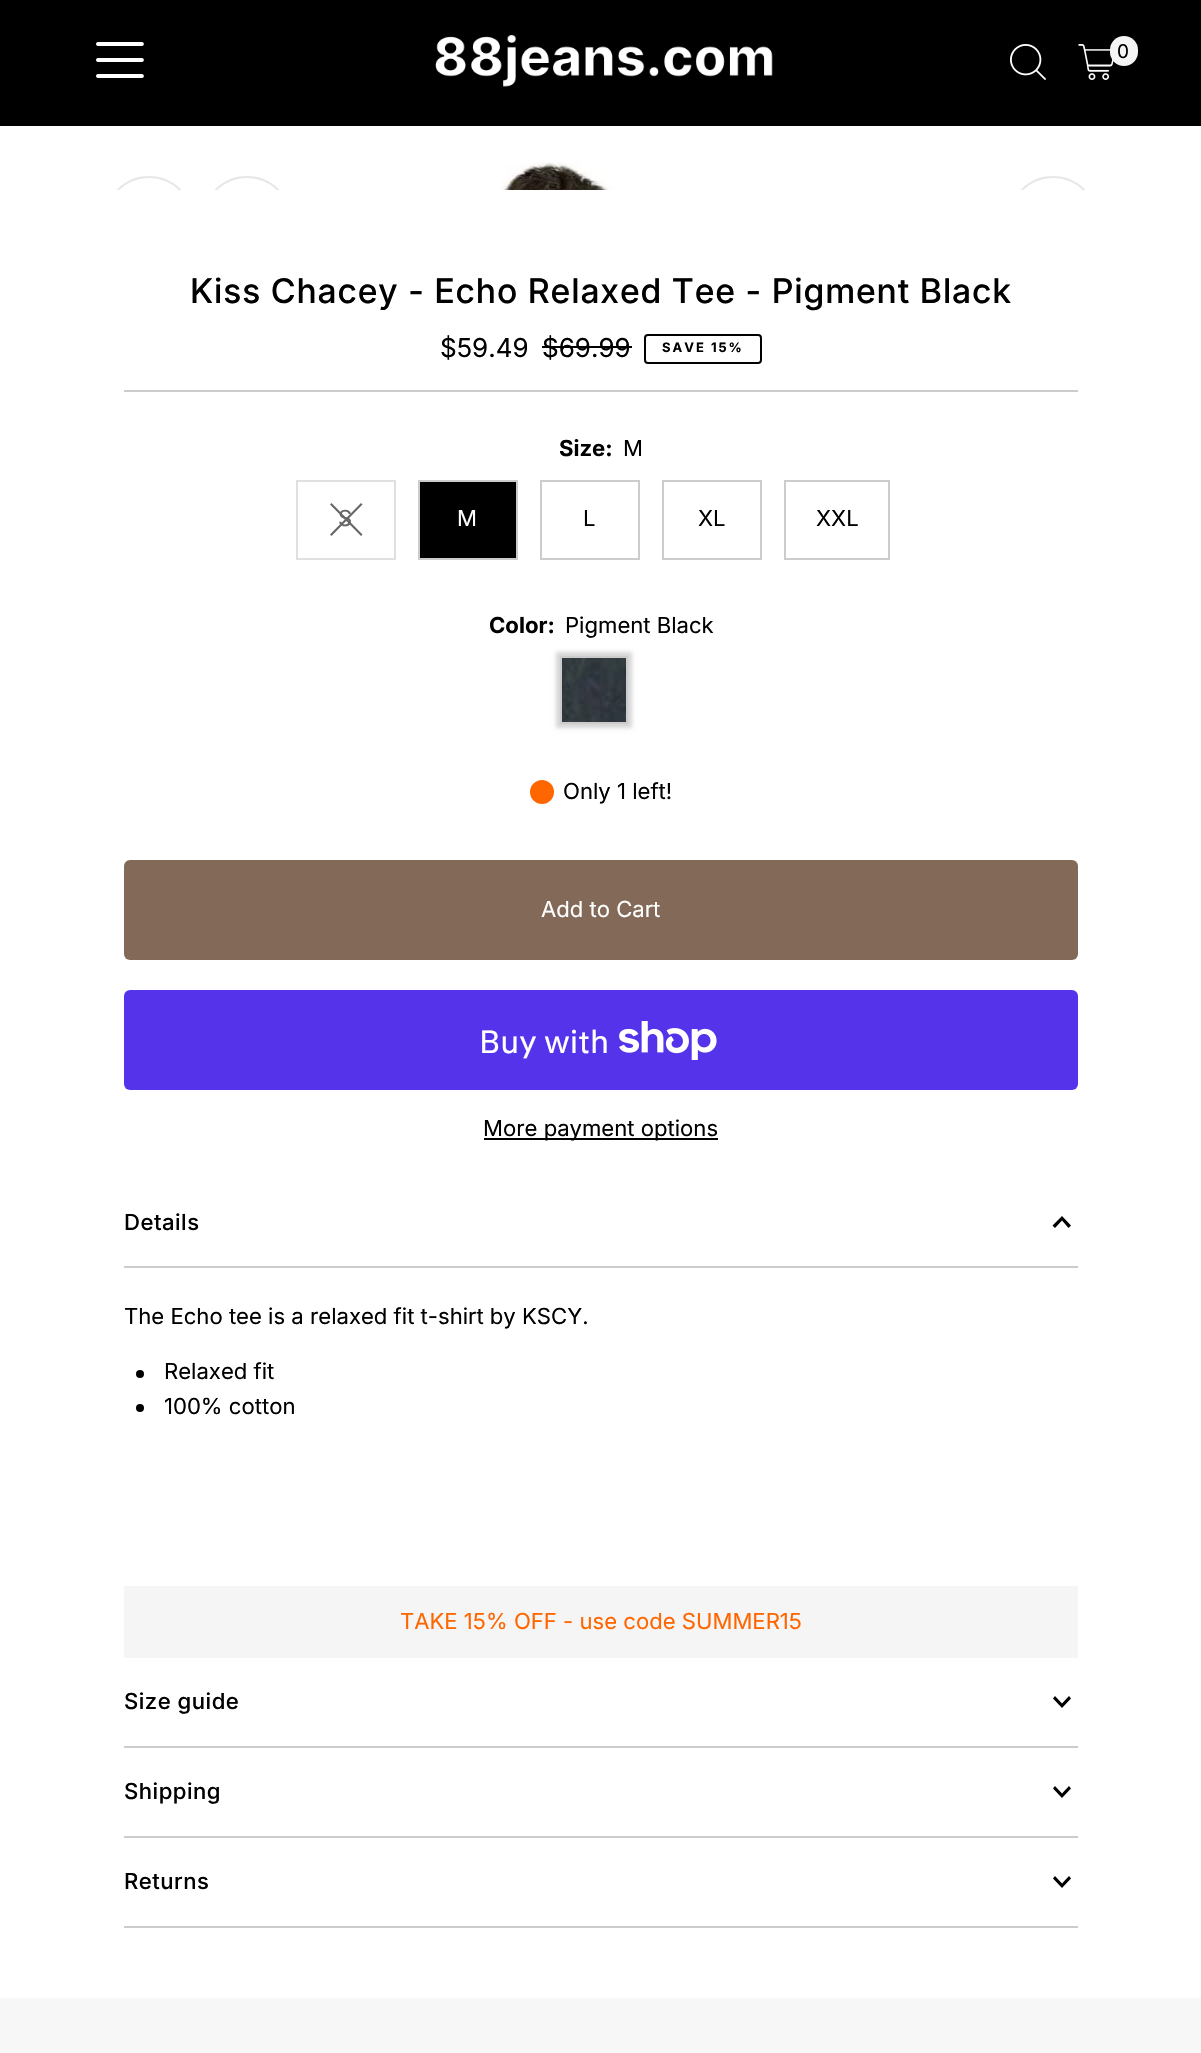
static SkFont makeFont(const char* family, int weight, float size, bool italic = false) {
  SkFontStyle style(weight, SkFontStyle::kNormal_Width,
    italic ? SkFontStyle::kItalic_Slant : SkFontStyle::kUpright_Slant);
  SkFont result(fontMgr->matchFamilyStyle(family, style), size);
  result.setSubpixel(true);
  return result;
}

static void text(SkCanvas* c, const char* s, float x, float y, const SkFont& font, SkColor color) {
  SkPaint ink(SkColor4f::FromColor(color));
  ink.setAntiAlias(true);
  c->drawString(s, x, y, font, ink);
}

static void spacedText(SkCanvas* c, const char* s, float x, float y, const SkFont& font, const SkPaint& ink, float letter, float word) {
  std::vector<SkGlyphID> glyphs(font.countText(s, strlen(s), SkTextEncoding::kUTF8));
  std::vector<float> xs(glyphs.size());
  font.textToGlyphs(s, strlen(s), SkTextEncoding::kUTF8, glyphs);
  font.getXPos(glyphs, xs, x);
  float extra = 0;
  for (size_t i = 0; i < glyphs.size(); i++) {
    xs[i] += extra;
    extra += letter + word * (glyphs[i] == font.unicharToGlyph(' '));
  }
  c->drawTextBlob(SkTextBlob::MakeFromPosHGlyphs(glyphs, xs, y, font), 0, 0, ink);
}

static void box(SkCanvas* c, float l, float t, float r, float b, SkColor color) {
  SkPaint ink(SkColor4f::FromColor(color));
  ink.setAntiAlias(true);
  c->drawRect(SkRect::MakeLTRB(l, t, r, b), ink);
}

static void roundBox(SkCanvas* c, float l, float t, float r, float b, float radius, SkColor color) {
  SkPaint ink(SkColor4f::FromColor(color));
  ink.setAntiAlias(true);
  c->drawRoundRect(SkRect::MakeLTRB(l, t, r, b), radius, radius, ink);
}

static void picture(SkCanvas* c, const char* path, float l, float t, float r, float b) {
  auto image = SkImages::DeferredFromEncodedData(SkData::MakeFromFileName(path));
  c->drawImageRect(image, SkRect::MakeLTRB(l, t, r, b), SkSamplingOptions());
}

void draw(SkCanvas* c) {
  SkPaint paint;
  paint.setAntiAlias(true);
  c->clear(0xffffffff);
  box(c, 0, 0, 1201, 126, 0xff000000);
  picture(c, "img_01.png", 96, 42, 144, 78);
  picture(c, "img_02.png", 435, 35, 773, 87);
  picture(c, "img_03.png", 1010, 44, 1046, 80);
  picture(c, "img_04.png", 1078, 44, 1114, 80);
  roundBox(c, 1110, 36, 1138, 66, 14, 0xfff5f5f5);
  SkFont face1 = makeFont("Inter", 400, 19);
  text(c, "0", 1117, 58, face1, 0xff000000);
  c->save();
  c->clipRect(SkRect::MakeLTRB(84, 156, 1118, 190));
  paint.setStyle(SkPaint::kStroke_Style);
  paint.setStrokeWidth(2);
  paint.setColor(0xffe7e7e7);
  c->drawCircle(149, 221, 44, paint);
  c->drawCircle(247, 221, 44, paint);
  c->restore();
  picture(c, "img_05.png", 501, 162, 613, 190);
  c->save();
  c->clipRect(SkRect::MakeLTRB(84, 156, 1118, 190));
  c->drawCircle(1053, 221, 44, paint);
  c->restore();
  box(c, 124, 390, 1078, 392, 0xffcccccc);
  SkFont face2 = makeFont("Inter", 500, 34);
  paint.setStyle(SkPaint::kFill_Style);
  paint.setColor(0xff000000);
  spacedText(c, "Kiss Chacey - Echo Relaxed Tee - Pigment Black", 190, 303, face2, paint, 0.85f, 0);
  SkFont face3 = makeFont("Inter", 400, 26);
  text(c, "$59.49", 440, 357, face3, 0xff000000);
  text(c, "$69.99", 542, 357, face3, 0xff000000);
  box(c, 542, 346, 632, 348, 0xff000000);
  paint.setStyle(SkPaint::kStroke_Style);
  c->drawRoundRect(SkRect::MakeLTRB(645, 335, 761, 363), 3, 3, paint);
  SkFont face4 = makeFont("Inter", 700, 13);
  paint.setStyle(SkPaint::kFill_Style);
  spacedText(c, "SAVE 15%", 662, 352, face4, paint, 2, 0);
  SkFont face5 = makeFont("Inter", 700, 22.1f);
  text(c, "Size:", 559, 456, face5, 0xff000000);
  SkFont face6 = makeFont("Inter", 400, 22.1f);
  text(c, "M", 623, 456, face6, 0xff000000);
  paint.setStyle(SkPaint::kStroke_Style);
  paint.setColor(0xffe0e0e0);
  c->drawRect(SkRect::MakeLTRB(297, 481, 395, 559), paint);
  paint.setStyle(SkPaint::kFill_Style);
  paint.setColor(0xff666666);
  c->drawPath(SkPathBuilder().moveTo(361, 503).lineTo(362.5f, 504.5f).lineTo(331.5f, 536).lineTo(330, 534.5f).close().detach(), paint);
  c->drawPath(SkPathBuilder().moveTo(362.5f, 534.5f).lineTo(361, 536).lineTo(330, 504.5f).lineTo(331.5f, 503).close().detach(), paint);
  text(c, "S", 338, 526, face6, 0xff666666);
  paint.setColor(0xff000000);
  c->drawRect(SkRect::MakeLTRB(419, 481, 517, 559), paint);
  paint.setStyle(SkPaint::kStroke_Style);
  paint.setColor(0xffcccccc);
  c->drawRect(SkRect::MakeLTRB(419, 481, 517, 559), paint);
  text(c, "M", 457, 526, face6, 0xffffffff);
  c->drawRect(SkRect::MakeLTRB(541, 481, 639, 559), paint);
  text(c, "L", 583, 526, face6, 0xff000000);
  c->drawRect(SkRect::MakeLTRB(663, 481, 761, 559), paint);
  text(c, "XL", 698, 526, face6, 0xff000000);
  c->drawRect(SkRect::MakeLTRB(785, 481, 889, 559), paint);
  text(c, "XXL", 816, 526, face6, 0xff000000);
  text(c, "Color:", 489, 633, face5, 0xff000000);
  text(c, "Pigment Black", 565, 633, face6, 0xff000000);
  paint.setStyle(SkPaint::kFill_Style);
  paint.setColor(0xffd6d6d6);
  paint.setMaskFilter(SkMaskFilter::MakeBlur(kNormal_SkBlurStyle, 2));
  c->drawRect(SkRect::MakeLTRB(556, 652, 632, 728), paint);
  paint.setMaskFilter(nullptr);
  picture(c, "img_06.png", 562, 658, 626, 722);
  paint.setStyle(SkPaint::kStroke_Style);
  paint.setColor(0xffcccccc);
  c->drawRect(SkRect::MakeLTRB(561, 657, 627, 723), paint);
  paint.setStyle(SkPaint::kFill_Style);
  paint.setColor(0xffff6600);
  c->drawCircle(542, 792, 12, paint);
  text(c, "Only 1 left!", 563, 799, face6, 0xff000000);
  roundBox(c, 124, 860, 1078, 960, 6, 0xff836957);
  text(c, "Add to Cart", 541, 917, face6, 0xffffffff);
  roundBox(c, 124, 990, 1078, 1090, 6, 0xff5433eb);
  SkFont face7 = makeFont("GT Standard", 400, 32);
  text(c, "Buy with", 479, 1053, face7, 0xffffffff);
  picture(c, "img_07.png", 619, 1021, 717, 1060);
  box(c, 484, 1138, 718, 1140, 0xff000000);
  text(c, "More payment options", 483, 1136, face6, 0xff000000);
  box(c, 124, 1266, 1078, 1268, 0xffcccccc);
  SkFont face8 = makeFont("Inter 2", 500, 22.1f);
  paint.setColor(0xff000000);
  spacedText(c, "Details", 124, 1230, face8, paint, 0.5f, 0);
  c->drawPath(SkPathBuilder().moveTo(1055, 1228).lineTo(1062, 1220.5f).lineTo(1068.5f, 1228).lineTo(1071, 1225.5f).lineTo(1062, 1216).lineTo(1052.5f, 1225.5f).close().detach(), paint);
  text(c, "The Echo tee is a relaxed fit t-shirt by KSCY.", 124, 1324, face6, 0xff000000);
  c->drawCircle(140, 1374, 4, paint);
  text(c, "Relaxed fit", 164, 1379, face6, 0xff000000);
  c->drawCircle(140, 1408, 4, paint);
  text(c, "100% cotton", 164, 1414, face6, 0xff000000);
  box(c, 124, 1586, 1078, 1658, 0xfff5f5f5);
  text(c, "TAKE 15% OFF - use code SUMMER15", 400, 1629, face6, 0xffff6600);
  box(c, 124, 1746, 1078, 1748, 0xffcccccc);
  spacedText(c, "Size guide", 124, 1709, face8, paint, 0.5f, 0);
  c->drawPath(SkPathBuilder().moveTo(1069, 1696).lineTo(1062, 1703.5f).lineTo(1055, 1696).lineTo(1053, 1698.5f).lineTo(1062, 1708).lineTo(1071, 1698.5f).close().detach(), paint);
  box(c, 124, 1836, 1078, 1838, 0xffcccccc);
  spacedText(c, "Shipping", 124, 1799, face8, paint, 0.5f, 0);
  c->drawPath(SkPathBuilder().moveTo(1069, 1786).lineTo(1062, 1793.5f).lineTo(1055, 1786).lineTo(1053, 1788.5f).lineTo(1062, 1798).lineTo(1071, 1788.5f).close().detach(), paint);
  box(c, 124, 1926, 1078, 1928, 0xffcccccc);
  spacedText(c, "Returns", 124, 1889, face8, paint, 0.5f, 0);
  c->drawPath(SkPathBuilder().moveTo(1069, 1876).lineTo(1062, 1883.5f).lineTo(1055, 1876).lineTo(1053, 1878.5f).lineTo(1062, 1888).lineTo(1071, 1878.5f).close().detach(), paint);
  box(c, 0, 1998, 1201, 2053, 0xfff7f7f7);
}
